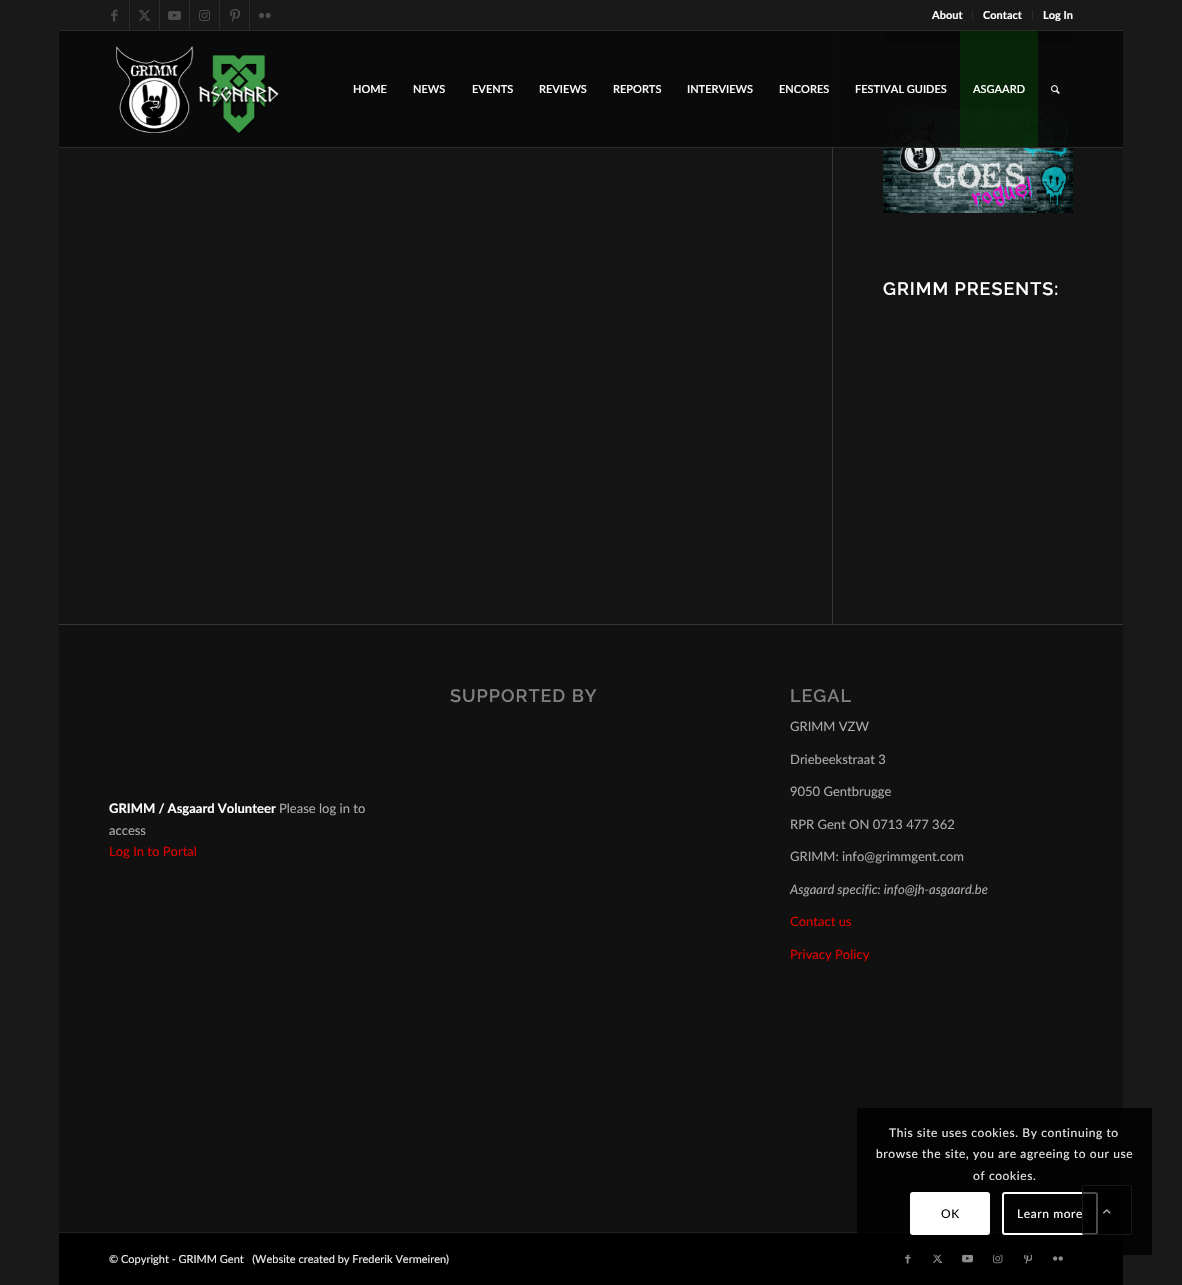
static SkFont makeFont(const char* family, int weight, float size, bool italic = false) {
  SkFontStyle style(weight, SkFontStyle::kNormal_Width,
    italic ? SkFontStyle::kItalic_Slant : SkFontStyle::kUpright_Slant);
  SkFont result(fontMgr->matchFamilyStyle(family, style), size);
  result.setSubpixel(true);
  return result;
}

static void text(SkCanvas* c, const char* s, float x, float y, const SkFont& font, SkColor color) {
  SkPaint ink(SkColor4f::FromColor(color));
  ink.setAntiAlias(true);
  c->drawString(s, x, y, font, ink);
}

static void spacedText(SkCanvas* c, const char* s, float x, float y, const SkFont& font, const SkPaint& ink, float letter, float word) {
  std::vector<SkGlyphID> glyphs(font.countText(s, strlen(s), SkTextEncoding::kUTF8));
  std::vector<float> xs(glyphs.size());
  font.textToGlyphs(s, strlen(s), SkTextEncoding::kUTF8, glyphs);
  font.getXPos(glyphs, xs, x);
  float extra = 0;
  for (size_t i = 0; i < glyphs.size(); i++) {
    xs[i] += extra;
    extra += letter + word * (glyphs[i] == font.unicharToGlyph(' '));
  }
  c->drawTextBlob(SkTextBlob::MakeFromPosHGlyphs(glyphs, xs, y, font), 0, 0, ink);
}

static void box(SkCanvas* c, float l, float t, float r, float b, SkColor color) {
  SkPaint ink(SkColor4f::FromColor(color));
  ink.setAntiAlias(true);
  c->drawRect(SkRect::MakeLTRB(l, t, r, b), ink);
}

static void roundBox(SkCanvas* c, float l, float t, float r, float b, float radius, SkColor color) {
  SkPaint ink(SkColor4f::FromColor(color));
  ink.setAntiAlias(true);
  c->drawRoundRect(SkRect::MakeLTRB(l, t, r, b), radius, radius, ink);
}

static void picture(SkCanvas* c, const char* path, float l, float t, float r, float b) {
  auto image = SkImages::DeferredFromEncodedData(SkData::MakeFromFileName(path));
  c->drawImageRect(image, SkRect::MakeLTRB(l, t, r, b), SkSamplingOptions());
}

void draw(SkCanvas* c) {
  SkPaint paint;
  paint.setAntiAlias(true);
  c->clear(0xff191919);
  box(c, 59, 30, 1123, 31, 0xff2b2b2b);
  box(c, 129, 0, 130, 30, 0xff2b2b2b);
  picture(c, "img_01.png", 111, 9, 118, 22);
  box(c, 159, 0, 160, 30, 0xff2b2b2b);
  picture(c, "img_02.png", 138, 10, 151, 21);
  box(c, 189, 0, 190, 30, 0xff2b2b2b);
  picture(c, "img_03.png", 168, 11, 181, 20);
  box(c, 219, 0, 220, 30, 0xff2b2b2b);
  picture(c, "img_04.png", 199, 10, 210, 21);
  box(c, 249, 0, 250, 30, 0xff2b2b2b);
  picture(c, "img_05.png", 230, 9, 240, 22);
  picture(c, "img_06.png", 259, 13, 271, 18);
  box(c, 972, 10, 973, 20, 0xff2b2b2b);
  SkFont face1 = makeFont("Lato", 700, 11);
  text(c, "About", 932, 19, face1, 0xffffffff);
  box(c, 1032, 10, 1033, 20, 0xff2b2b2b);
  text(c, "Contact", 983, 19, face1, 0xffffffff);
  text(c, "Log In", 1043, 19, face1, 0xffffffff);
  box(c, 59, 31, 1123, 624, 0xff141414);
  box(c, 149, 31, 150, 33, 0xff363636);
  box(c, 832, 31, 833, 624, 0xff363636);
  picture(c, "img_09.png", 883, 31, 1073, 44);
  picture(c, "img_10.png", 883, 110, 1073, 213);
  box(c, 59, 31, 1123, 147, 0xf2080808);
  box(c, 59, 147, 1123, 148, 0xff2b2b2b);
  picture(c, "img_07.png", 116, 46, 279, 134);
  SkFont face2 = makeFont("Lato", 600, 11);
  text(c, "HOME", 353, 93, face2, 0xffffffff);
  text(c, "NEWS", 413, 93, face2, 0xffffffff);
  text(c, "EVENTS", 472, 93, face2, 0xffffffff);
  text(c, "REVIEWS", 539, 93, face2, 0xffffffff);
  text(c, "REPORTS", 613, 93, face2, 0xffffffff);
  text(c, "INTERVIEWS", 687, 93, face2, 0xffffffff);
  text(c, "ENCORES", 779, 93, face2, 0xffffffff);
  text(c, "FESTIVAL GUIDES", 855, 93, face2, 0xffffffff);
  box(c, 960, 31, 1038, 147, 0x4d006400);
  text(c, "ASGAARD", 973, 93, face2, 0xffffffff);
  picture(c, "img_08.png", 1051, 85, 1060, 94);
  SkFont face3 = makeFont("Raleway", 600, 18);
  paint.setColor(0xffffffff);
  spacedText(c, "GRIMM PRESENTS:", 883, 295, face3, paint, 1, 0);
  box(c, 59, 625, 1123, 1232, 0xff111111);
  box(c, 59, 624, 1123, 625, 0xff363636);
  SkFont face4 = makeFont("Lato", 700, 13);
  text(c, "GRIMM / Asgaard Volunteer", 109, 813, face4, 0xffffffff);
  SkFont face5 = makeFont("Lato", 400, 13);
  text(c, "Please log in to", 279, 813, face5, 0xffaaaaaa);
  text(c, "access", 109, 835, face5, 0xffaaaaaa);
  text(c, "Log In to Portal", 109, 856, face5, 0xffdb0000);
  paint.setColor(0xff808080);
  spacedText(c, "SUPPORTED BY", 450, 702, face3, paint, 1, 0);
  spacedText(c, "LEGAL", 790, 702, face3, paint, 1, 0);
  text(c, "GRIMM VZW", 790, 731, face5, 0xffaaaaaa);
  text(c, "Driebeekstraat 3", 790, 764, face5, 0xffaaaaaa);
  text(c, "9050 Gentbrugge", 790, 796, face5, 0xffaaaaaa);
  text(c, "RPR Gent ON 0713 477 362", 790, 829, face5, 0xffaaaaaa);
  text(c, "GRIMM: info@grimmgent.com", 790, 861, face5, 0xffaaaaaa);
  SkFont face6 = makeFont("Lato", 400, 13, true);
  text(c, "Asgaard specific: info@jh-asgaard.be", 790, 894, face6, 0xffaaaaaa);
  text(c, "Contact us", 790, 926, face5, 0xffdb0000);
  text(c, "Privacy Policy", 790, 959, face5, 0xffdb0000);
  box(c, 59, 1233, 1123, 1285, 0xff000000);
  box(c, 59, 1232, 1123, 1233, 0xff222222);
  SkFont face7 = makeFont("Lato", 400, 11);
  text(c, "© Copyright - GRIMM Gent   (Website created by Frederik Vermeiren)", 109, 1263, face7, 0xffeeeeee);
  picture(c, "img_11.png", 905, 1253, 911, 1264);
  picture(c, "img_12.png", 932, 1254, 943, 1263);
  picture(c, "img_13.png", 962, 1254, 973, 1263);
  picture(c, "img_14.png", 993, 1253, 1003, 1264);
  picture(c, "img_15.png", 1024, 1253, 1032, 1264);
  picture(c, "img_16.png", 1053, 1256, 1063, 1261);
  box(c, 857, 1108, 1152, 1255, 0xd9000000);
  SkFont face8 = makeFont("Lato", 400, 12);
  paint.setColor(0xffe6e6e6);
  spacedText(c, "This site uses cookies. By continuing to", 889, 1137, face8, paint, 0.6f, 0);
  spacedText(c, "browse the site, you are agreeing to our use", 876, 1158, face8, paint, 0.6f, 0);
  spacedText(c, "of cookies.", 973, 1180, face8, paint, 0.6f, 0);
  roundBox(c, 910, 1192, 990, 1235, 3, 0xffffffff);
  paint.setColor(0xff000000);
  spacedText(c, "OK", 941, 1218, face8, paint, 0.6f, 0);
  paint.setStyle(SkPaint::kStroke_Style);
  paint.setStrokeWidth(2);
  paint.setColor(0xffffffff);
  c->drawRoundRect(SkRect::MakeLTRB(1003, 1193, 1097, 1234), 2, 2, paint);
  paint.setStyle(SkPaint::kFill_Style);
  spacedText(c, "Learn more", 1017, 1218, face8, paint, 0.6f, 0);
  roundBox(c, 1082, 1185, 1132, 1235, 2, 0xb3000000);
  paint.setStyle(SkPaint::kStroke_Style);
  paint.setStrokeWidth(1);
  paint.setColor(0xb3222222);
  c->drawRoundRect(SkRect::MakeLTRB(1082.5f, 1185.5f, 1131.5f, 1234.5f), 1.5f, 1.5f, paint);
  picture(c, "img_17.png", 1103, 1209, 1111, 1214);
}
